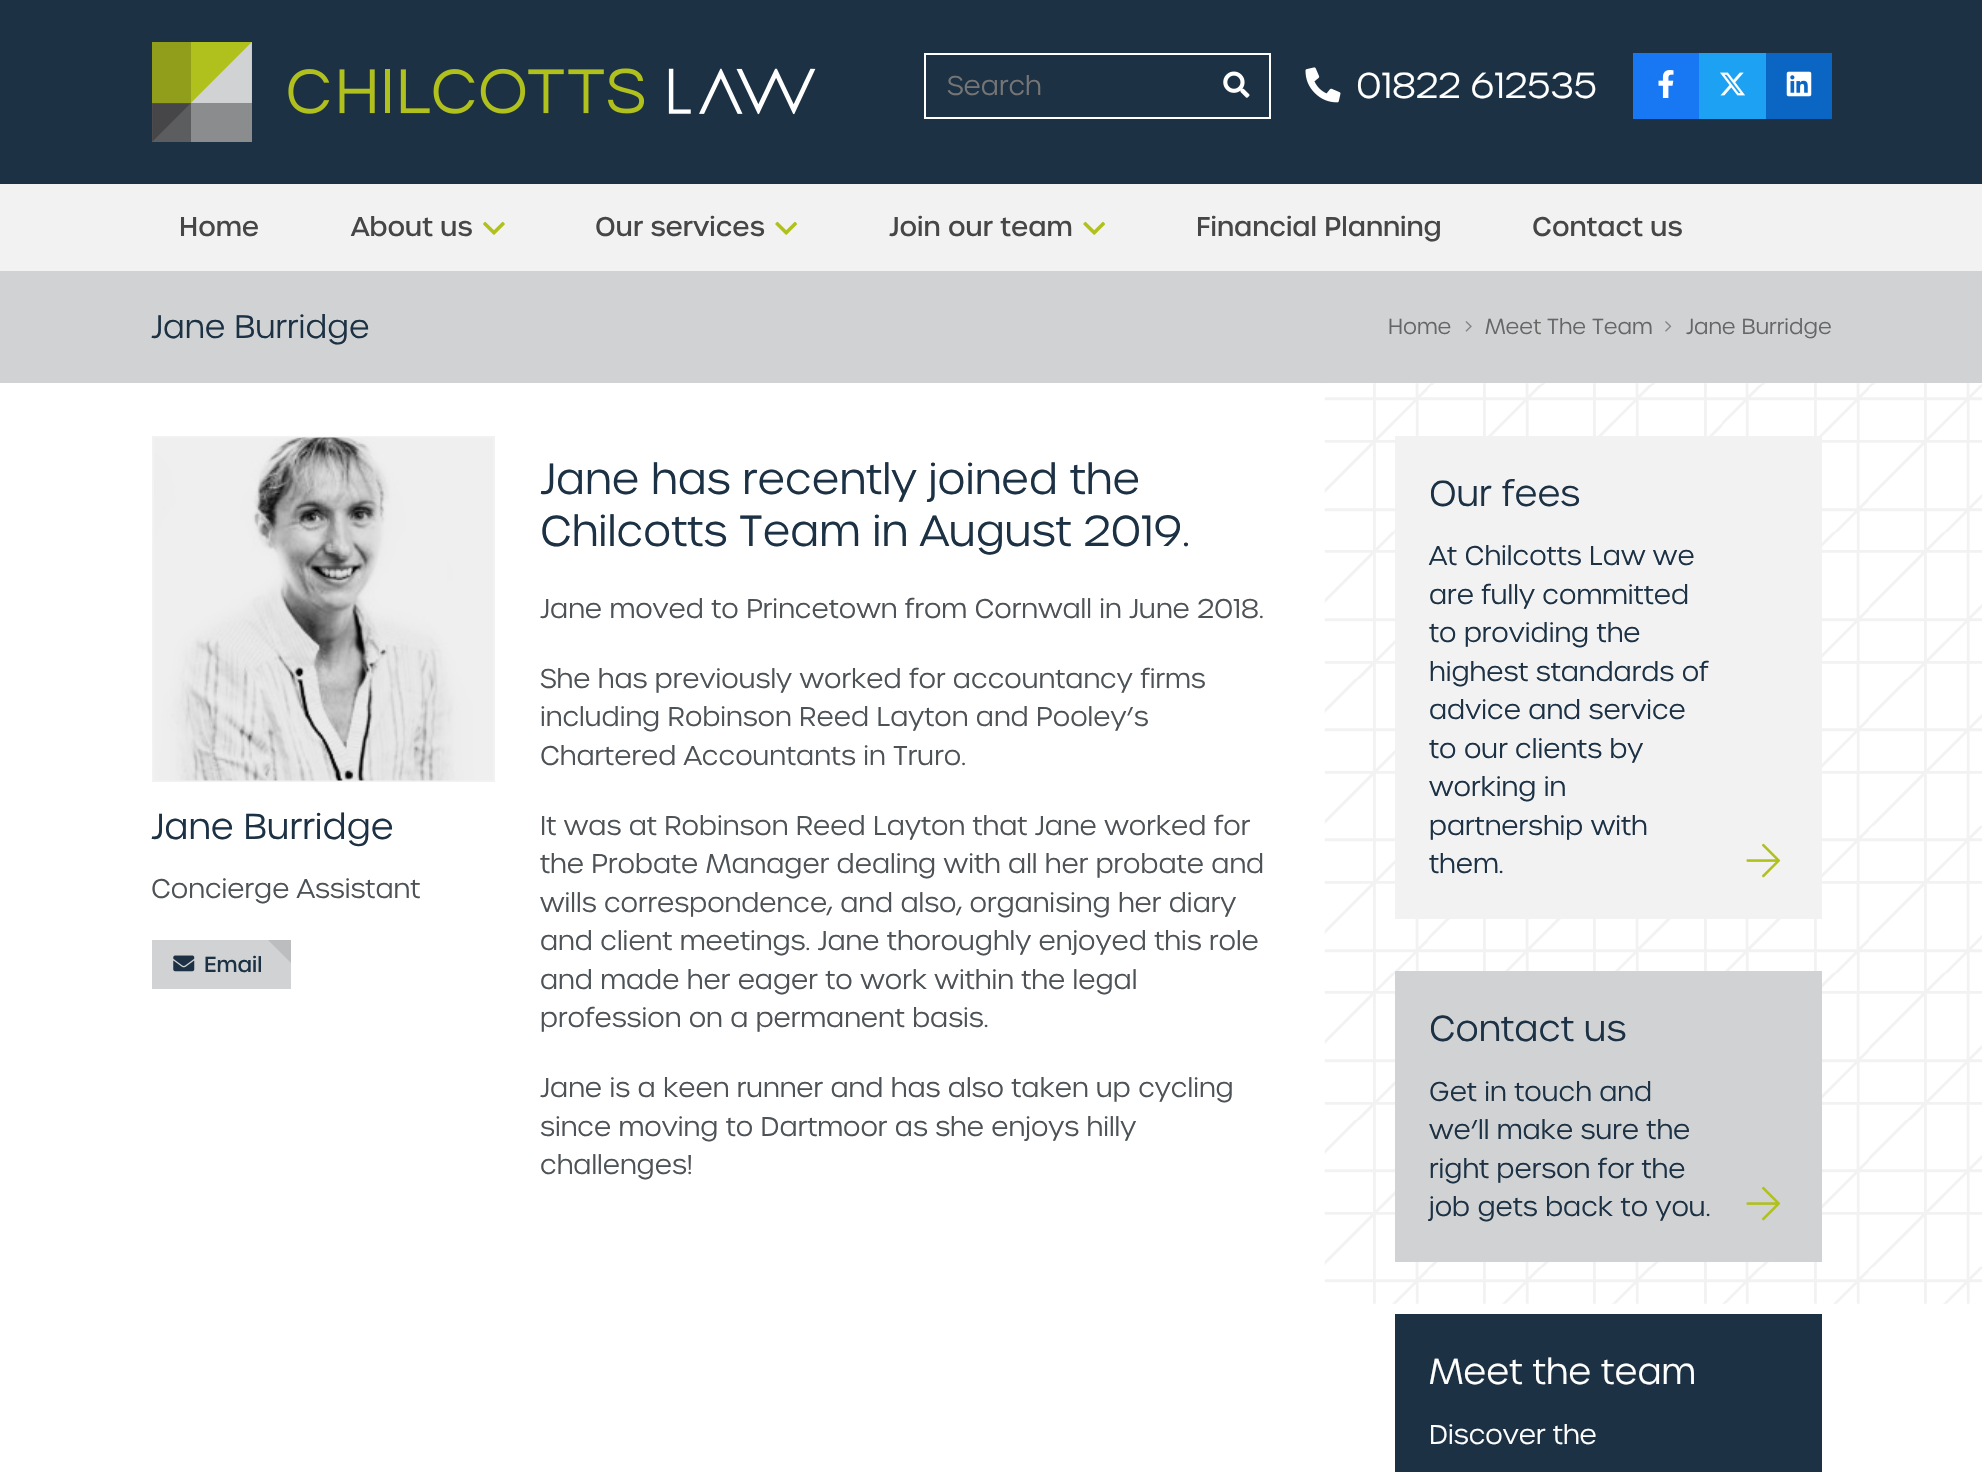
static SkFont makeFont(const char* family, int weight, float size, bool italic = false) {
  SkFontStyle style(weight, SkFontStyle::kNormal_Width,
    italic ? SkFontStyle::kItalic_Slant : SkFontStyle::kUpright_Slant);
  SkFont result(fontMgr->matchFamilyStyle(family, style), size);
  result.setSubpixel(true);
  return result;
}

static void text(SkCanvas* c, const char* s, float x, float y, const SkFont& font, SkColor color) {
  SkPaint ink(SkColor4f::FromColor(color));
  ink.setAntiAlias(true);
  c->drawString(s, x, y, font, ink);
}

static void box(SkCanvas* c, float l, float t, float r, float b, SkColor color) {
  SkPaint ink(SkColor4f::FromColor(color));
  ink.setAntiAlias(true);
  c->drawRect(SkRect::MakeLTRB(l, t, r, b), ink);
}

static void picture(SkCanvas* c, const char* path, float l, float t, float r, float b) {
  auto image = SkImages::DeferredFromEncodedData(SkData::MakeFromFileName(path));
  c->drawImageRect(image, SkRect::MakeLTRB(l, t, r, b), SkSamplingOptions());
}

void draw(SkCanvas* c) {
  SkPaint paint;
  paint.setAntiAlias(true);
  c->clear(0xffffffff);
  box(c, 0, 0, 1982, 184, 0xff1c3144);
  picture(c, "img_01.png", 152, 42, 816, 142);
  paint.setStyle(SkPaint::kStroke_Style);
  paint.setStrokeWidth(2);
  paint.setColor(0xffffffff);
  c->drawRect(SkRect::MakeLTRB(925, 54, 1270, 118), paint);
  SkFont face1 = makeFont("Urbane", 300, 26.25f);
  text(c, "Search", 947, 95, face1, 0xff757575);
  picture(c, "img_02.png", 1223, 71, 1250, 98);
  picture(c, "img_03.png", 1305, 67, 1341, 103);
  SkFont face2 = makeFont("Urbane", 300, 35);
  text(c, "01822 612535", 1356, 98, face2, 0xffffffff);
  box(c, 1633, 53, 1699, 119, 0xff1877f2);
  picture(c, "img_04.png", 1658, 70, 1674, 98);
  box(c, 1699, 53, 1766, 119, 0xff1da1f2);
  picture(c, "img_05.png", 1720, 72, 1745, 96);
  box(c, 1766, 53, 1832, 119, 0xff0a66c2);
  picture(c, "img_06.png", 1786, 71, 1812, 97);
  box(c, 0, 184, 1982, 271, 0xfff2f2f2);
  SkFont face3 = makeFont("Urbane", 500, 26.25f);
  text(c, "Home", 179, 236, face3, 0xff464648);
  text(c, "About us", 351, 236, face3, 0xff464648);
  picture(c, "img_07.png", 483, 221, 505, 235);
  text(c, "Our services", 595, 236, face3, 0xff464648);
  picture(c, "img_08.png", 775, 221, 798, 235);
  text(c, "Join our team", 889, 236, face3, 0xff464648);
  picture(c, "img_08.png", 1083, 221, 1106, 235);
  text(c, "Financial Planning", 1196, 236, face3, 0xff464648);
  text(c, "Contact us", 1532, 236, face3, 0xff464648);
  box(c, 0, 271, 1982, 383, 0xffd0d2d3);
  SkFont face4 = makeFont("Urbane", 300, 31.5f);
  text(c, "Jane Burridge", 151, 338, face4, 0xff1c3144);
  SkFont face5 = makeFont("Urbane", 300, 21);
  text(c, "Home", 1388, 334, face5, 0xff666666);
  picture(c, "img_09.png", 1465, 321, 1472, 332);
  text(c, "Meet The Team", 1485, 334, face5, 0xff666666);
  picture(c, "img_10.png", 1665, 321, 1672, 332);
  text(c, "Jane Burridge", 1686, 334, face5, 0xff666666);
  paint.setColor(0xfff2f2f2);
  c->drawRect(SkRect::MakeLTRB(153, 437, 494, 781), paint);
  picture(c, "img_11.png", 154, 437, 493, 781);
  text(c, "Jane Burridge", 151, 839, face2, 0xff1c3144);
  text(c, "Concierge Assistant", 151, 898, face1, 0xff4d5256);
  box(c, 152, 940, 291, 989, 0xffd0d2d3);
  picture(c, "img_12.png", 173, 955, 195, 972);
  SkFont face6 = makeFont("Urbane", 500, 21);
  text(c, "Email", 204, 972, face6, 0xff1c3144);
  paint.setStyle(SkPaint::kFill_Style);
  paint.setColor(0xffbbbdbe);
  c->drawPath(SkPathBuilder().moveTo(268, 940).lineTo(291, 963).lineTo(291, 940).close().detach(), paint);
  SkFont face7 = makeFont("Urbane", 300, 42);
  text(c, "Jane has recently joined the", 540, 494, face7, 0xff1c3144);
  text(c, "Chilcotts Team in August 2019.", 540, 546, face7, 0xff1c3144);
  text(c, "Jane moved to Princetown from Cornwall in June 2018.", 540, 618, face1, 0xff4d5256);
  text(c, "She has previously worked for accountancy firms", 540, 688, face1, 0xff4d5256);
  text(c, "including Robinson Reed Layton and Pooley’s", 540, 726, face1, 0xff4d5256);
  text(c, "Chartered Accountants in Truro.", 540, 765, face1, 0xff4d5256);
  text(c, "It was at Robinson Reed Layton that Jane worked for", 540, 835, face1, 0xff4d5256);
  text(c, "the Probate Manager dealing with all her probate and", 540, 873, face1, 0xff4d5256);
  text(c, "wills correspondence, and also, organising her diary", 540, 912, face1, 0xff4d5256);
  text(c, "and client meetings. Jane thoroughly enjoyed this role", 540, 950, face1, 0xff4d5256);
  text(c, "and made her eager to work within the legal", 540, 989, face1, 0xff4d5256);
  text(c, "profession on a permanent basis.", 540, 1027, face1, 0xff4d5256);
  text(c, "Jane is a keen runner and has also taken up cycling", 540, 1097, face1, 0xff4d5256);
  text(c, "since moving to Dartmoor as she enjoys hilly", 540, 1136, face1, 0xff4d5256);
  text(c, "challenges!", 540, 1174, face1, 0xff4d5256);
  picture(c, "img_13.png", 1324, 383, 1982, 1304);
  box(c, 1395, 436, 1822, 919, 0xfff2f2f2);
  text(c, "Our fees", 1429, 506, face2, 0xff1c3144);
  text(c, "At Chilcotts Law we", 1429, 565, face1, 0xff1c3144);
  text(c, "are fully committed", 1429, 604, face1, 0xff1c3144);
  text(c, "to providing the", 1429, 642, face1, 0xff1c3144);
  text(c, "highest standards of", 1429, 681, face1, 0xff1c3144);
  text(c, "advice and service", 1429, 719, face1, 0xff1c3144);
  text(c, "to our clients by", 1429, 758, face1, 0xff1c3144);
  text(c, "working in", 1429, 796, face1, 0xff1c3144);
  text(c, "partnership with", 1429, 835, face1, 0xff1c3144);
  text(c, "them.", 1429, 873, face1, 0xff1c3144);
  picture(c, "img_14.png", 1746, 843, 1781, 878);
  box(c, 1395, 971, 1822, 1262, 0xffd0d2d3);
  text(c, "Contact us", 1429, 1041, face2, 0xff1c3144);
  text(c, "Get in touch and", 1429, 1101, face1, 0xff1c3144);
  text(c, "we’ll make sure the", 1429, 1139, face1, 0xff1c3144);
  text(c, "right person for the", 1429, 1178, face1, 0xff1c3144);
  text(c, "job gets back to you.", 1429, 1216, face1, 0xff1c3144);
  picture(c, "img_15.png", 1746, 1186, 1781, 1221);
  box(c, 1395, 1314, 1822, 1472, 0xff1c3144);
  text(c, "Meet the team", 1429, 1384, face2, 0xffffffff);
  text(c, "Discover the", 1429, 1444, face1, 0xffffffff);
}
